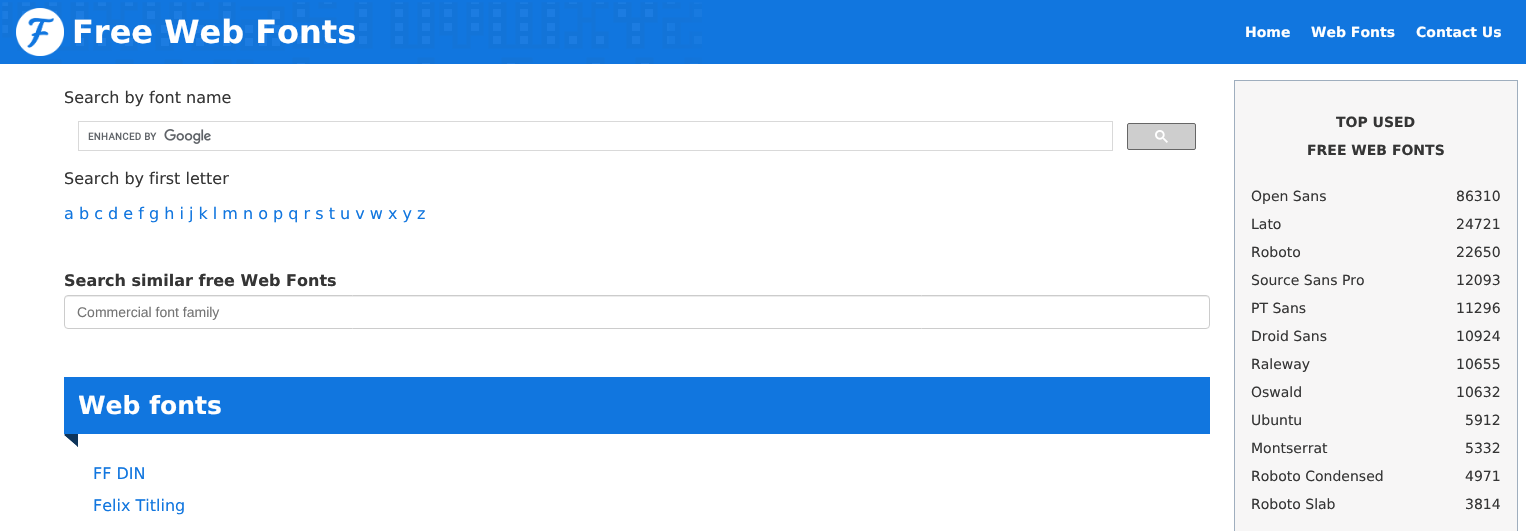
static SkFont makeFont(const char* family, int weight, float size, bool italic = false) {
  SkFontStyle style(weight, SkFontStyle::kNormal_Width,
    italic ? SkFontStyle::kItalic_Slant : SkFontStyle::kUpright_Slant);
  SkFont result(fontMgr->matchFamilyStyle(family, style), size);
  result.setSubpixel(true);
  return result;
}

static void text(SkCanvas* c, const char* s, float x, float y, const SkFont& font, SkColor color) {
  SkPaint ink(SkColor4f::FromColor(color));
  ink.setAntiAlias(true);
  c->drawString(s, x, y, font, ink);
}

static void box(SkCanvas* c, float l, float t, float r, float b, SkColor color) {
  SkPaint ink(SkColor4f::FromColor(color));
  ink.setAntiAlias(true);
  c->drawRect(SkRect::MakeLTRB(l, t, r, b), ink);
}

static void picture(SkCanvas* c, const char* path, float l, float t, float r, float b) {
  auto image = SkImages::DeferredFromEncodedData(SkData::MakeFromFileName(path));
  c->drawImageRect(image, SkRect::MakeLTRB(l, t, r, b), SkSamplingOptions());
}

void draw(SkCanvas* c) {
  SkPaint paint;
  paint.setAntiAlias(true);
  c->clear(0xffffffff);
  box(c, 0, 0, 1526, 64, 0xff1176df);
  picture(c, "img_01.png", 2, 2, 702, 64);
  picture(c, "img_02.png", 16, 8, 64, 56);
  SkFont face1 = makeFont("DejaVu Sans", 700, 32);
  text(c, "Free Web Fonts", 72, 43, face1, 0xffffffff);
  SkFont face2 = makeFont("DejaVu Sans", 700, 14);
  text(c, "Home", 1245, 37, face2, 0xffffffff);
  text(c, "Web Fonts", 1311, 37, face2, 0xffffffff);
  text(c, "Contact Us", 1416, 37, face2, 0xffffffff);
  SkFont face3 = makeFont("DejaVu Sans", 400, 16);
  text(c, "Search by font name", 64, 103, face3, 0xff353535);
  paint.setStyle(SkPaint::kStroke_Style);
  paint.setStrokeWidth(1);
  paint.setColor(0xffd9d9d9);
  c->drawRect(SkRect::MakeLTRB(78.5f, 121.5f, 1112.5f, 150.5f), paint);
  picture(c, "img_03.png", 88, 129, 211, 144);
  paint.setStyle(SkPaint::kFill_Style);
  paint.setColor(0xffcecece);
  c->drawRoundRect(SkRect::MakeLTRB(1127.5f, 123.5f, 1195.5f, 149.5f), 1.5f, 1.5f, paint);
  paint.setStyle(SkPaint::kStroke_Style);
  paint.setColor(0xff666666);
  c->drawRoundRect(SkRect::MakeLTRB(1127.5f, 123.5f, 1195.5f, 149.5f), 1.5f, 1.5f, paint);
  picture(c, "img_04.png", 1155, 130, 1168, 143);
  text(c, "Search by first letter", 64, 184, face3, 0xff353535);
  text(c, "a b c d e f g h i j k l m n o p q r s t u v w x y z", 64, 219, face3, 0xff1176df);
  SkFont face4 = makeFont("DejaVu Sans", 700, 16);
  text(c, "Search similar free Web Fonts", 64, 286, face4, 0xff353535);
  paint.setStyle(SkPaint::kFill_Style);
  paint.setColor(0xffececec);
  c->drawPath(SkPathBuilder().moveTo(68, 297).lineTo(1206, 297).cubicTo(1208, 297, 1209, 298, 1209, 300).lineTo(1209, 299).cubicTo(1209, 297, 1208, 296, 1206, 296).lineTo(68, 296).cubicTo(66, 296, 65, 297, 65, 299).lineTo(65, 300).cubicTo(65, 298, 66, 297, 68, 297).close().detach(), paint);
  paint.setStyle(SkPaint::kStroke_Style);
  paint.setColor(0xffcccccc);
  c->drawRoundRect(SkRect::MakeLTRB(64.5f, 295.5f, 1209.5f, 328.5f), 3.5f, 3.5f, paint);
  SkFont face5 = makeFont("Liberation Sans", 400, 14);
  text(c, "Commercial font family", 77, 317, face5, 0xff757575);
  box(c, 64, 377, 1210, 434, 0xff1176df);
  SkFont face6 = makeFont("DejaVu Sans", 700, 25);
  text(c, "Web fonts", 78, 414, face6, 0xffffffff);
  picture(c, "img_05.png", 64, 395, 79, 447);
  text(c, "FF DIN", 93, 479, face3, 0xff1176df);
  text(c, "Felix Titling", 93, 511, face3, 0xff1176df);
  paint.setStyle(SkPaint::kFill_Style);
  paint.setColor(0xfff7f6f6);
  c->drawRect(SkRect::MakeLTRB(1234.5f, 80.5f, 1517.5f, 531.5f), paint);
  paint.setStyle(SkPaint::kStroke_Style);
  paint.setColor(0xff9faebe);
  c->drawRect(SkRect::MakeLTRB(1234.5f, 80.5f, 1517.5f, 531.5f), paint);
  text(c, "TOP USED", 1336, 127, face2, 0xff353535);
  text(c, "FREE WEB FONTS", 1307, 155, face2, 0xff353535);
  SkFont face7 = makeFont("DejaVu Sans", 400, 14);
  text(c, "Open Sans", 1251, 201, face7, 0xff353535);
  text(c, "86310", 1456, 201, face7, 0xff353535);
  text(c, "Lato", 1251, 229, face7, 0xff353535);
  text(c, "24721", 1456, 229, face7, 0xff353535);
  text(c, "Roboto", 1251, 257, face7, 0xff353535);
  text(c, "22650", 1456, 257, face7, 0xff353535);
  text(c, "Source Sans Pro", 1251, 285, face7, 0xff353535);
  text(c, "12093", 1456, 285, face7, 0xff353535);
  text(c, "PT Sans", 1251, 313, face7, 0xff353535);
  text(c, "11296", 1456, 313, face7, 0xff353535);
  text(c, "Droid Sans", 1251, 341, face7, 0xff353535);
  text(c, "10924", 1456, 341, face7, 0xff353535);
  text(c, "Raleway", 1251, 369, face7, 0xff353535);
  text(c, "10655", 1456, 369, face7, 0xff353535);
  text(c, "Oswald", 1251, 397, face7, 0xff353535);
  text(c, "10632", 1456, 397, face7, 0xff353535);
  text(c, "Ubuntu", 1251, 425, face7, 0xff353535);
  text(c, "5912", 1465, 425, face7, 0xff353535);
  text(c, "Montserrat", 1251, 453, face7, 0xff353535);
  text(c, "5332", 1465, 453, face7, 0xff353535);
  text(c, "Roboto Condensed", 1251, 481, face7, 0xff353535);
  text(c, "4971", 1465, 481, face7, 0xff353535);
  text(c, "Roboto Slab", 1251, 509, face7, 0xff353535);
  text(c, "3814", 1465, 509, face7, 0xff353535);
}
